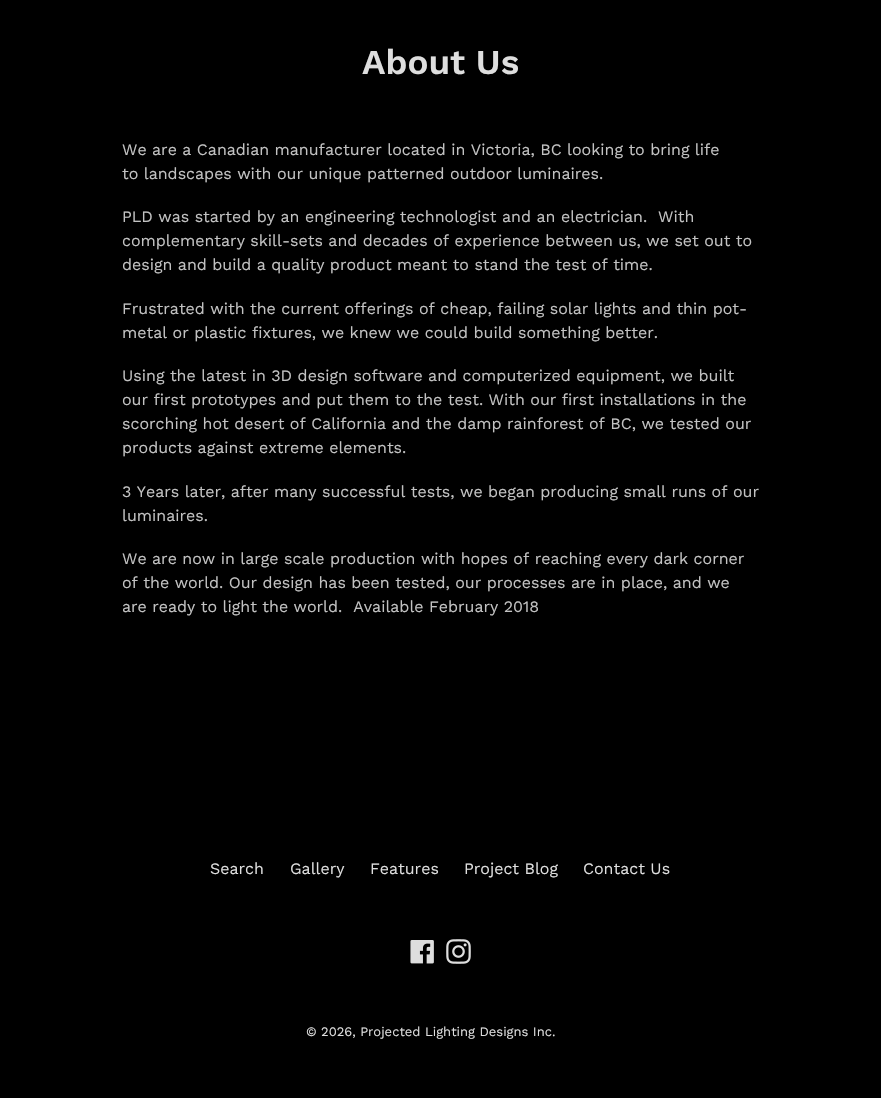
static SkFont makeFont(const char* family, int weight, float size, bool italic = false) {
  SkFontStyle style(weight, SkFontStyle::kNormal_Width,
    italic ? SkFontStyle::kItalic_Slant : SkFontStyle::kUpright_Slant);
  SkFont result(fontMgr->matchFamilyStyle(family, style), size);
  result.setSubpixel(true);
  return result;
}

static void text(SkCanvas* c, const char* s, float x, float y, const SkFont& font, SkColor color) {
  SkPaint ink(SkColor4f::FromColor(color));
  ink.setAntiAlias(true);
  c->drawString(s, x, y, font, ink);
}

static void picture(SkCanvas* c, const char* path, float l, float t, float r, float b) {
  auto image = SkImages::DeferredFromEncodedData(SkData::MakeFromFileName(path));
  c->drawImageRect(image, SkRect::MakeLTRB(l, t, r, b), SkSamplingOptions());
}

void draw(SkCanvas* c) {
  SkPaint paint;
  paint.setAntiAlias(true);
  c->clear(0xff000000);
  SkFont face1 = makeFont("Work Sans", 600, 35);
  text(c, "About Us", 362, 74, face1, 0xffdedede);
  SkFont face2 = makeFont("Work Sans", 400, 16);
  text(c, "We are a Canadian manufacturer located in Victoria, BC looking to bring life", 122, 155, face2, 0xffc2c2c2);
  text(c, "to landscapes with our unique patterned outdoor luminaires.", 122, 179, face2, 0xffc2c2c2);
  text(c, "PLD was started by an engineering technologist and an electrician.  With", 122, 222, face2, 0xffc2c2c2);
  text(c, "complementary skill-sets and decades of experience between us, we set out to", 122, 246, face2, 0xffc2c2c2);
  text(c, "design and build a quality product meant to stand the test of time.", 122, 270, face2, 0xffc2c2c2);
  text(c, "Frustrated with the current offerings of cheap, failing solar lights and thin pot-", 122, 314, face2, 0xffc2c2c2);
  text(c, "metal or plastic fixtures, we knew we could build something better.", 122, 338, face2, 0xffc2c2c2);
  text(c, "Using the latest in 3D design software and computerized equipment, we built", 122, 381, face2, 0xffc2c2c2);
  text(c, "our first prototypes and put them to the test. With our first installations in the", 122, 405, face2, 0xffc2c2c2);
  text(c, "scorching hot desert of California and the damp rainforest of BC, we tested our", 122, 429, face2, 0xffc2c2c2);
  text(c, "products against extreme elements.", 122, 453, face2, 0xffc2c2c2);
  text(c, "3 Years later, after many successful tests, we began producing small runs of our", 122, 497, face2, 0xffc2c2c2);
  text(c, "luminaires.", 122, 521, face2, 0xffc2c2c2);
  text(c, "We are now in large scale production with hopes of reaching every dark corner", 122, 564, face2, 0xffc2c2c2);
  text(c, "of the world. Our design has been tested, our processes are in place, and we", 122, 588, face2, 0xffc2c2c2);
  text(c, "are ready to light the world.  Available February 2018", 122, 612, face2, 0xffc2c2c2);
  text(c, "Search", 210, 874, face2, 0xffdedede);
  text(c, "Gallery", 290, 874, face2, 0xffdedede);
  text(c, "Features", 370, 874, face2, 0xffdedede);
  text(c, "Project Blog", 464, 874, face2, 0xffdedede);
  text(c, "Contact Us", 583, 874, face2, 0xffdedede);
  picture(c, "img_01.png", 410, 940, 434, 964);
  picture(c, "img_02.png", 446, 939, 471, 964);
  SkFont face3 = makeFont("Work Sans", 400, 13);
  text(c, "© 2026, Projected Lighting Designs Inc.", 306, 1036, face3, 0xffdedede);
}
